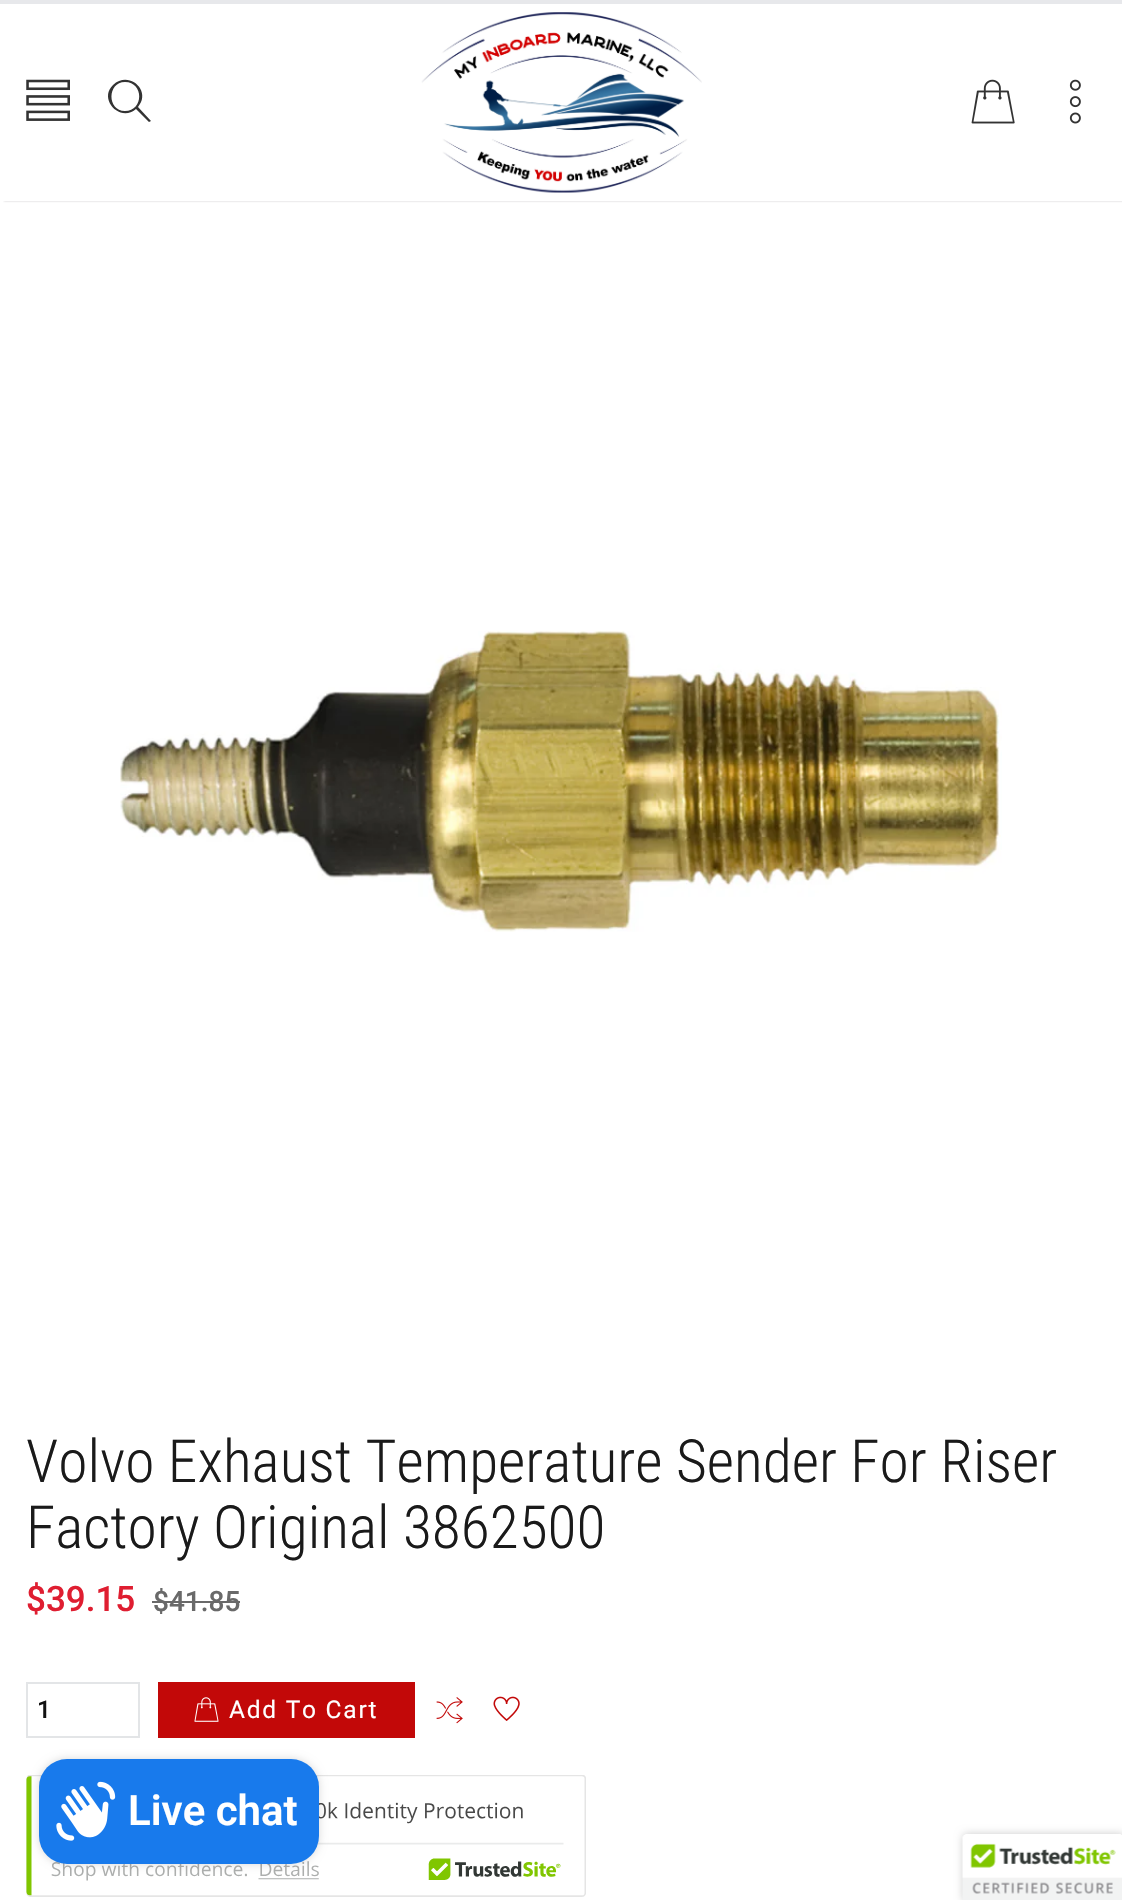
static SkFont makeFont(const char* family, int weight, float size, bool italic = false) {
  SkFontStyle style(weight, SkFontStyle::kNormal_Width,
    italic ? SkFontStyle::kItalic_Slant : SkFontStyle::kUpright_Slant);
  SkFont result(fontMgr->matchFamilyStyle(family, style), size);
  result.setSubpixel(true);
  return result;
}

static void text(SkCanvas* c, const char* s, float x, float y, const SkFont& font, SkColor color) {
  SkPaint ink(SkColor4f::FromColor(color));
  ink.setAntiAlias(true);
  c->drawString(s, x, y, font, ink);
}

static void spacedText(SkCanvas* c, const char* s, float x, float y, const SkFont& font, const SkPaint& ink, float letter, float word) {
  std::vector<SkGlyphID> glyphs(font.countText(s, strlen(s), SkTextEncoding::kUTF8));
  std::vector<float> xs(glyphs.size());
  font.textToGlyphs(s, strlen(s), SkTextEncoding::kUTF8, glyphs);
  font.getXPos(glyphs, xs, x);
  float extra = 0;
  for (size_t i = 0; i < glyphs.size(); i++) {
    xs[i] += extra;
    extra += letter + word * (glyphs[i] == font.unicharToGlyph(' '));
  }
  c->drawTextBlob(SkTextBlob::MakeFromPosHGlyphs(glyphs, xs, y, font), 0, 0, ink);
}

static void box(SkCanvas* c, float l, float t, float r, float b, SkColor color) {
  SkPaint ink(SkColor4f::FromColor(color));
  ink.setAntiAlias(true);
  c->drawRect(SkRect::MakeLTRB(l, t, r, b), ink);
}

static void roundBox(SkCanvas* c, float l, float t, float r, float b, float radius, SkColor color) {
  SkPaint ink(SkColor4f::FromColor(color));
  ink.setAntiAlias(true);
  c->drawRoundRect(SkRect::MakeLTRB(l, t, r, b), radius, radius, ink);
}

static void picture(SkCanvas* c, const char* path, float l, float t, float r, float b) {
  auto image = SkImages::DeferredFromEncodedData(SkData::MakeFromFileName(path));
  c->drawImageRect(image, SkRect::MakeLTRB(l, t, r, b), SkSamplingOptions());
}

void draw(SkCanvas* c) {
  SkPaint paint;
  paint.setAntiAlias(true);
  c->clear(0xffffffff);
  c->save();
  c->clipRect(SkRect::MakeLTRB(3, 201, 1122, 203));
  paint.setColor(0xffccc8cc);
  paint.setMaskFilter(SkMaskFilter::MakeBlur(kNormal_SkBlurStyle, 1));
  c->drawRect(SkRect::MakeLTRB(4, 4, 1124, 201), paint);
  paint.setMaskFilter(nullptr);
  c->restore();
  box(c, 0, 0, 1122, 4, 0xffe7e8eb);
  picture(c, "img_01.png", 26, 79, 70, 121);
  paint.setColor(0xff333333);
  c->drawPath(SkPathBuilder().moveTo(151, 121).lineTo(138, 107).cubicTo(152, 91, 129, 70, 113, 85).cubicTo(98, 99, 120, 123, 136, 109).lineTo(149, 122).close().moveTo(125, 111).cubicTo(107, 111, 107, 82, 125, 82).cubicTo(144, 82, 144, 111, 125, 111).close().detach(), paint);
  picture(c, "img_02.png", 421, 12, 702, 193);
  picture(c, "img_03.png", 971, 79, 1015, 124);
  picture(c, "img_04.png", 1069, 79, 1081, 124);
  picture(c, "img_05.png", 120, 630, 1002, 932);
  SkFont face1 = makeFont("Roboto Condensed", 300, 59.5f);
  text(c, "Volvo Exhaust Temperature Sender For Riser", 26, 1482, face1, 0xff1a1a1a);
  text(c, "Factory Original 3862500", 26, 1548, face1, 0xff1a1a1a);
  SkFont face2 = makeFont("Roboto", 500, 35);
  text(c, "$39.15", 26, 1611, face2, 0xffdf1e31);
  SkFont face3 = makeFont("Roboto", 500, 28);
  text(c, "$41.85", 153, 1611, face3, 0xff696969);
  box(c, 152, 1601, 240, 1603, 0xff696969);
  paint.setStyle(SkPaint::kStroke_Style);
  paint.setStrokeWidth(2);
  paint.setColor(0xffe3e5e7);
  c->drawRect(SkRect::MakeLTRB(27, 1683, 139, 1737), paint);
  SkFont face4 = makeFont("Roboto", 500, 24.5f);
  text(c, "1", 37, 1718, face4, 0xff121212);
  box(c, 158, 1682, 415, 1738, 0xffc20808);
  picture(c, "img_06.png", 194, 1697, 219, 1722);
  SkFont face5 = makeFont("Roboto", 400, 24.5f);
  paint.setStyle(SkPaint::kFill_Style);
  paint.setColor(0xffffffff);
  spacedText(c, "Add To Cart", 229, 1718, face5, paint, 1.75f, 0);
  picture(c, "img_07.png", 436, 1697, 463, 1724);
  picture(c, "img_08.png", 493, 1696, 520, 1721);
  picture(c, "img_09.png", 26, 1775, 586, 1897);
  paint.setColor(0x26000000);
  paint.setMaskFilter(SkMaskFilter::MakeBlur(kNormal_SkBlurStyle, 4.5f));
  c->drawRoundRect(SkRect::MakeLTRB(39, 1759, 319, 1864), 28, 28, paint);
  paint.setMaskFilter(nullptr);
  roundBox(c, 39, 1759, 319, 1864, 28, 0xff187aec);
  picture(c, "img_10.png", 56, 1781, 116, 1841);
  SkFont face6 = makeFont("Roboto", 600, 42);
  text(c, "Live chat", 128, 1825, face6, 0xffffffff);
  paint.setColor(0x33000000);
  paint.setMaskFilter(SkMaskFilter::MakeBlur(kNormal_SkBlurStyle, 4.5f));
  c->drawRoundRect(SkRect::MakeLTRB(963, 1834, 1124, 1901), 4, 4, paint);
  paint.setMaskFilter(nullptr);
  picture(c, "img_11.png", 962, 1834, 1122, 1900);
}
